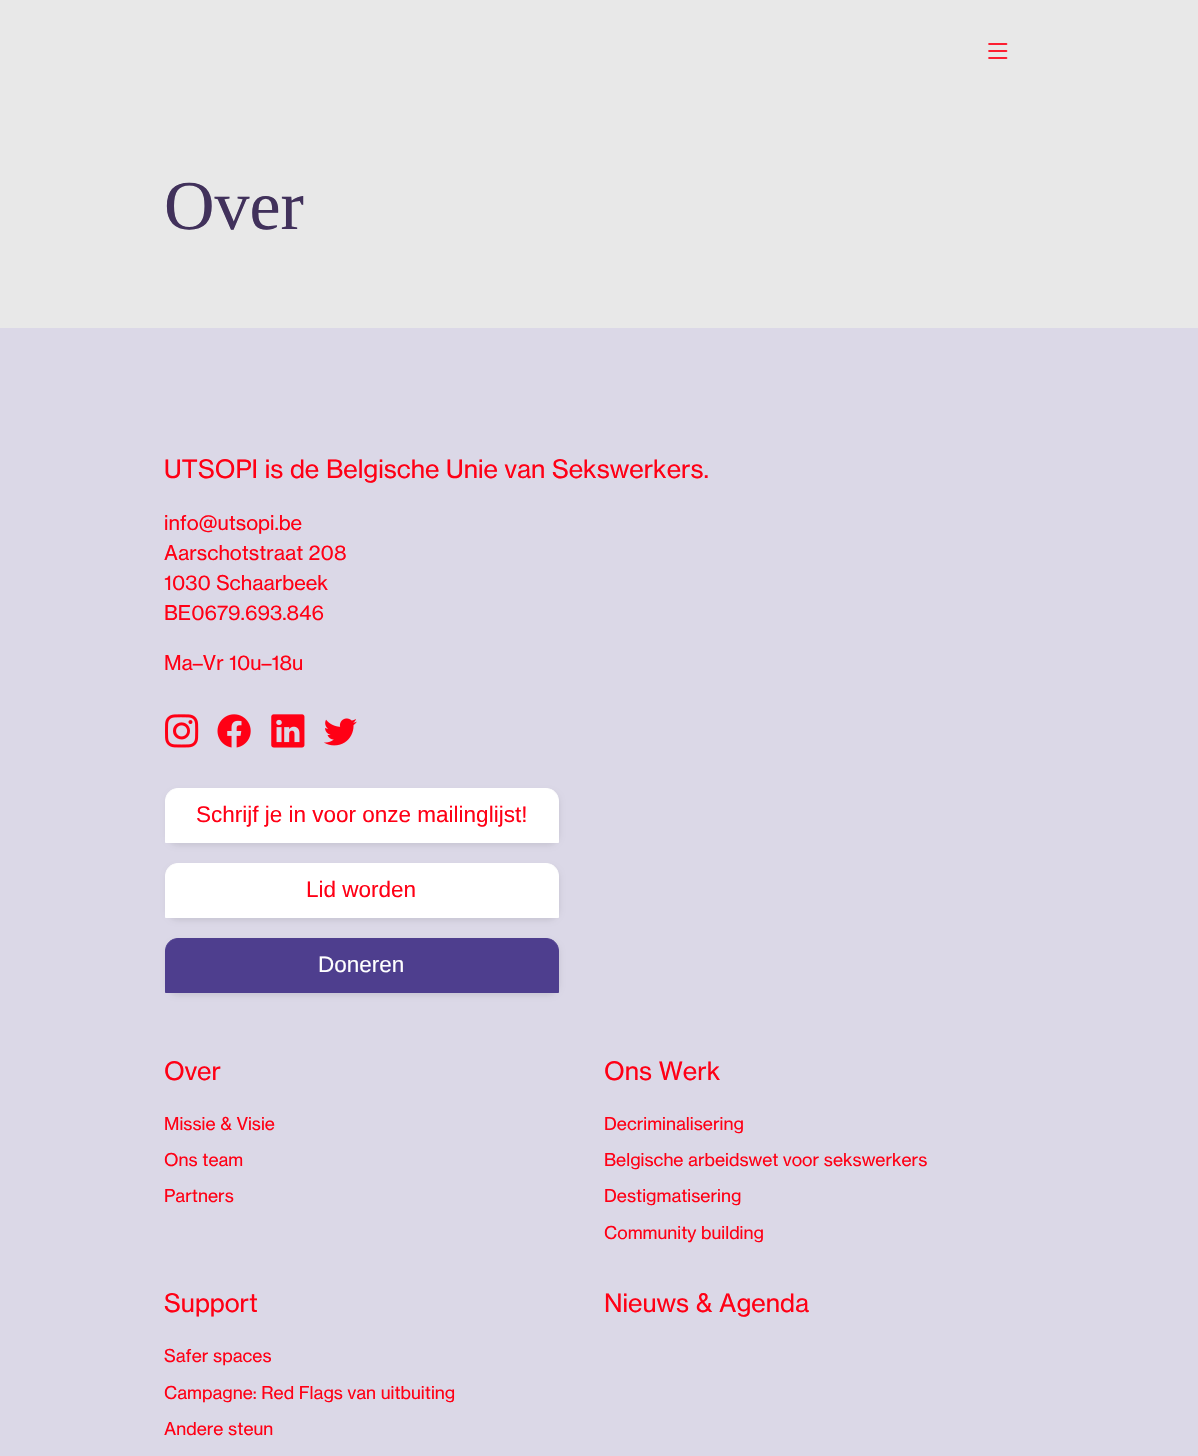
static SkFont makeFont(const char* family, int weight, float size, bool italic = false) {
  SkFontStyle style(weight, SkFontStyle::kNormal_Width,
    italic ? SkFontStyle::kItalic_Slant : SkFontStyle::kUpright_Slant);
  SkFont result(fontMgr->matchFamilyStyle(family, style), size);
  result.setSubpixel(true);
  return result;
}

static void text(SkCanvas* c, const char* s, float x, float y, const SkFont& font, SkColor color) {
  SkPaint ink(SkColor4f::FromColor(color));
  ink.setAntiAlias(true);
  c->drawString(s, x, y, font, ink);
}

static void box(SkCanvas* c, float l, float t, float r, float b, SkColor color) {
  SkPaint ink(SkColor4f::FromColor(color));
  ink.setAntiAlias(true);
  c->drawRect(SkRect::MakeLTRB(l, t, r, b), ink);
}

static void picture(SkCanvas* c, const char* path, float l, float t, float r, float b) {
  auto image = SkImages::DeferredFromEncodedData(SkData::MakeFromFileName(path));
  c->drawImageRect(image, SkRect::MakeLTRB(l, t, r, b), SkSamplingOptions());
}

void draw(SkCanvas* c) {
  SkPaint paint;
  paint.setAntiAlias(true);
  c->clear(0xffe8e8e8);
  picture(c, "img_01.png", 988, 43, 1008, 59);
  SkFont face1 = makeFont("Liberation Serif", 400, 70);
  text(c, "Over", 164, 229, face1, 0xff41315b);
  box(c, 0, 328, 1198, 1456, 0xffdbd8e7);
  SkFont face2 = makeFont("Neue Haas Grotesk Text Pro", 400, 25);
  text(c, "UTSOPI is de Belgische Unie van Sekswerkers.", 164, 478, face2, 0xffff0015);
  SkFont face3 = makeFont("Neue Haas Grotesk Text Pro", 400, 20);
  text(c, "info@utsopi.be", 164, 530, face3, 0xffff0015);
  text(c, "Aarschotstraat 208", 164, 560, face3, 0xffff0015);
  text(c, "1030 Schaarbeek", 164, 590, face3, 0xffff0015);
  text(c, "BE0679.693.846", 164, 620, face3, 0xffff0015);
  text(c, "Ma–Vr 10u–18u", 164, 670, face3, 0xffff0015);
  picture(c, "img_02.png", 165, 714, 199, 748);
  picture(c, "img_03.png", 217, 714, 251, 748);
  picture(c, "img_04.png", 271, 714, 305, 748);
  picture(c, "img_05.png", 324, 718, 357, 746);
  paint.setColor(0x14000000);
  paint.setMaskFilter(SkMaskFilter::MakeBlur(kNormal_SkBlurStyle, 2.5f));
  c->drawRoundRect(SkRect::MakeLTRB(166, 791, 560, 846), 13, 13, paint);
  paint.setMaskFilter(nullptr);
  paint.setColor(0xffffffff);
  c->drawPath(SkPathBuilder().moveTo(178, 788.5f).lineTo(546, 788.5f).cubicTo(553, 788.5f, 558.5f, 794, 558.5f, 801).lineTo(558.5f, 842.5f).lineTo(165.5f, 842.5f).lineTo(165.5f, 801).cubicTo(165.5f, 794, 171, 788.5f, 178, 788.5f).close().detach(), paint);
  paint.setStyle(SkPaint::kStroke_Style);
  paint.setStrokeWidth(1);
  c->drawPath(SkPathBuilder().moveTo(178, 788.5f).lineTo(546, 788.5f).cubicTo(553, 788.5f, 558.5f, 794, 558.5f, 801).lineTo(558.5f, 842.5f).lineTo(165.5f, 842.5f).lineTo(165.5f, 801).cubicTo(165.5f, 794, 171, 788.5f, 178, 788.5f).close().detach(), paint);
  SkFont face4 = makeFont("Liberation Sans", 400, 22.5f);
  text(c, "Schrijf je in voor onze mailinglijst!", 196, 822, face4, 0xffff0015);
  paint.setStyle(SkPaint::kFill_Style);
  paint.setColor(0x14000000);
  paint.setMaskFilter(SkMaskFilter::MakeBlur(kNormal_SkBlurStyle, 2.5f));
  c->drawRoundRect(SkRect::MakeLTRB(166, 866, 560, 921), 13, 13, paint);
  paint.setMaskFilter(nullptr);
  paint.setColor(0xffffffff);
  c->drawPath(SkPathBuilder().moveTo(178, 863.5f).lineTo(546, 863.5f).cubicTo(553, 863.5f, 558.5f, 869, 558.5f, 876).lineTo(558.5f, 917.5f).lineTo(165.5f, 917.5f).lineTo(165.5f, 876).cubicTo(165.5f, 869, 171, 863.5f, 178, 863.5f).close().detach(), paint);
  paint.setStyle(SkPaint::kStroke_Style);
  c->drawPath(SkPathBuilder().moveTo(178, 863.5f).lineTo(546, 863.5f).cubicTo(553, 863.5f, 558.5f, 869, 558.5f, 876).lineTo(558.5f, 917.5f).lineTo(165.5f, 917.5f).lineTo(165.5f, 876).cubicTo(165.5f, 869, 171, 863.5f, 178, 863.5f).close().detach(), paint);
  text(c, "Lid worden", 306, 897, face4, 0xffff0015);
  paint.setStyle(SkPaint::kFill_Style);
  paint.setColor(0x14000000);
  paint.setMaskFilter(SkMaskFilter::MakeBlur(kNormal_SkBlurStyle, 2.5f));
  c->drawRoundRect(SkRect::MakeLTRB(166, 941, 560, 996), 13, 13, paint);
  paint.setMaskFilter(nullptr);
  paint.setColor(0xff4e3e8e);
  c->drawPath(SkPathBuilder().moveTo(178, 938.5f).lineTo(546, 938.5f).cubicTo(553, 938.5f, 558.5f, 944, 558.5f, 951).lineTo(558.5f, 992.5f).lineTo(165.5f, 992.5f).lineTo(165.5f, 951).cubicTo(165.5f, 944, 171, 938.5f, 178, 938.5f).close().detach(), paint);
  paint.setStyle(SkPaint::kStroke_Style);
  c->drawPath(SkPathBuilder().moveTo(178, 938.5f).lineTo(546, 938.5f).cubicTo(553, 938.5f, 558.5f, 944, 558.5f, 951).lineTo(558.5f, 992.5f).lineTo(165.5f, 992.5f).lineTo(165.5f, 951).cubicTo(165.5f, 944, 171, 938.5f, 178, 938.5f).close().detach(), paint);
  text(c, "Doneren", 318, 972, face4, 0xffffffff);
  text(c, "Over", 164, 1080, face2, 0xffff0015);
  SkFont face5 = makeFont("Neue Haas Grotesk Text Pro", 400, 17.5f);
  text(c, "Missie & Visie", 164, 1130, face5, 0xffff0015);
  text(c, "Ons team", 164, 1166, face5, 0xffff0015);
  text(c, "Partners", 164, 1202, face5, 0xffff0015);
  text(c, "Ons Werk", 604, 1080, face2, 0xffff0015);
  text(c, "Decriminalisering", 604, 1130, face5, 0xffff0015);
  text(c, "Belgische arbeidswet voor sekswerkers", 604, 1166, face5, 0xffff0015);
  text(c, "Destigmatisering", 604, 1202, face5, 0xffff0015);
  text(c, "Community building", 604, 1239, face5, 0xffff0015);
  text(c, "Support", 164, 1312, face2, 0xffff0015);
  text(c, "Safer spaces", 164, 1362, face5, 0xffff0015);
  text(c, "Campagne: Red Flags van uitbuiting", 164, 1399, face5, 0xffff0015);
  text(c, "Andere steun", 164, 1435, face5, 0xffff0015);
  text(c, "Nieuws & Agenda", 604, 1312, face2, 0xffff0015);
}
